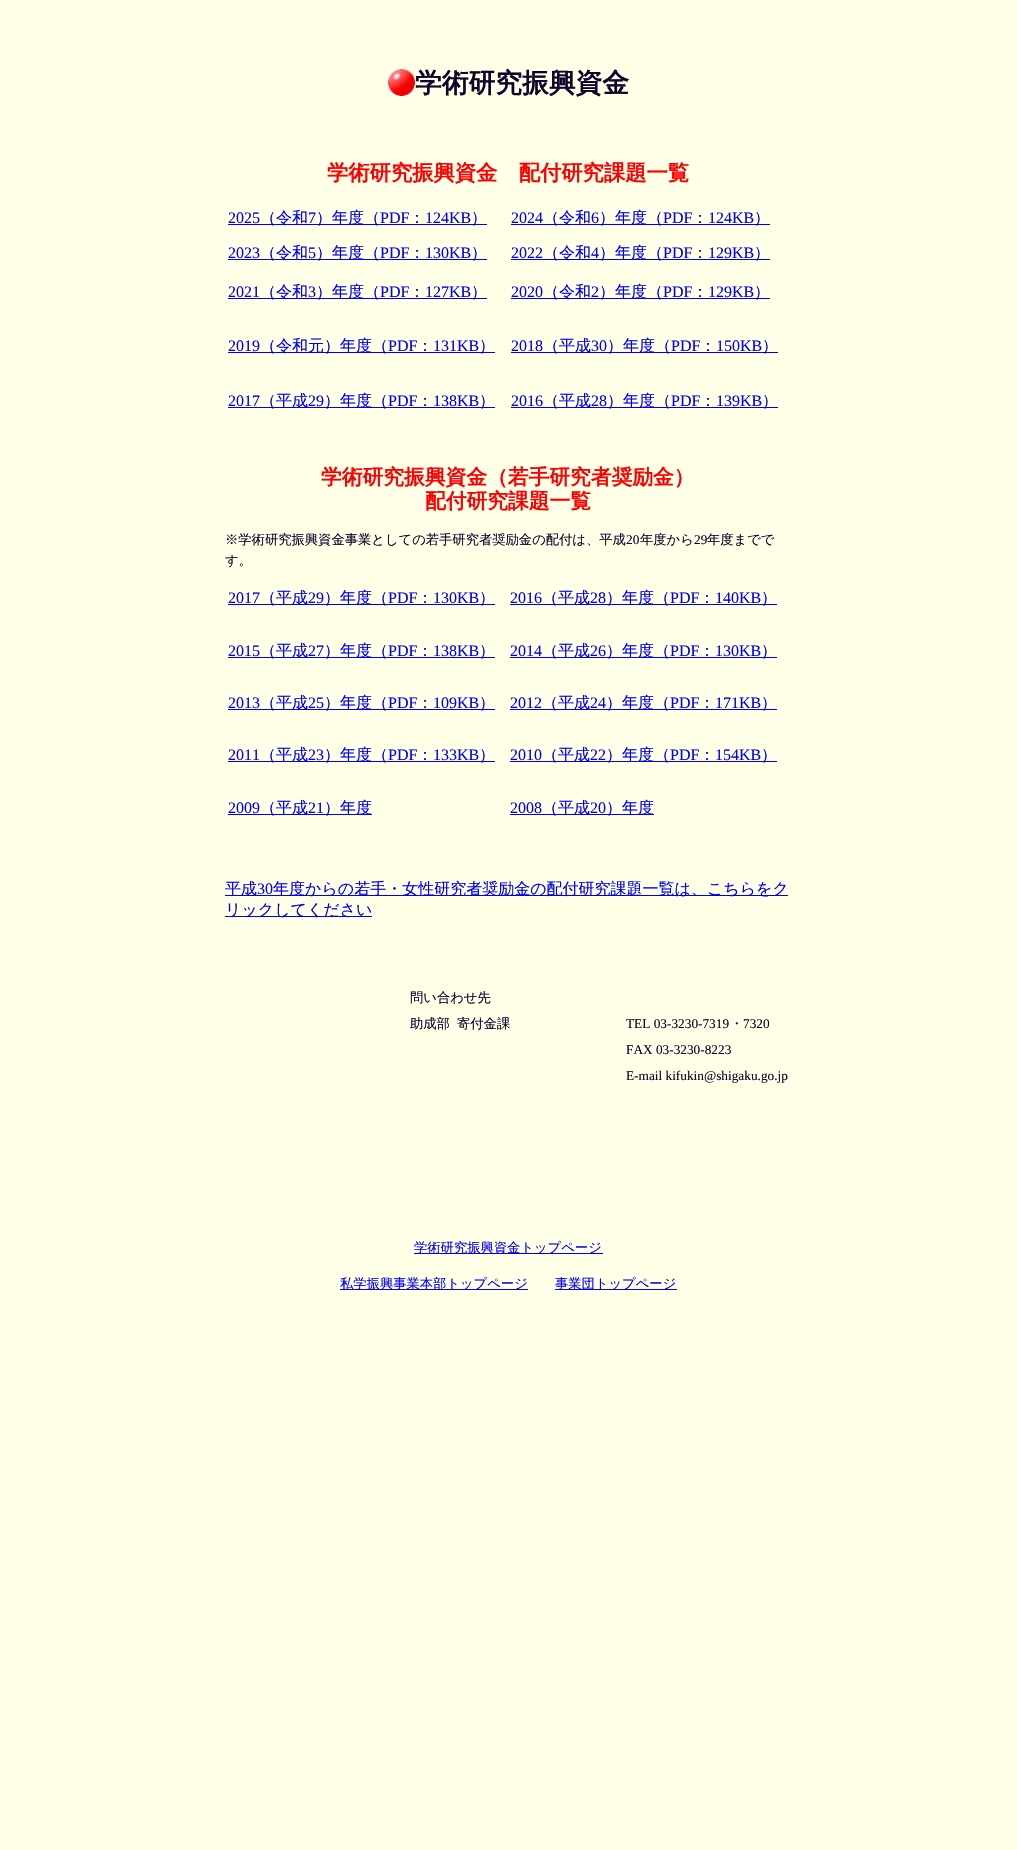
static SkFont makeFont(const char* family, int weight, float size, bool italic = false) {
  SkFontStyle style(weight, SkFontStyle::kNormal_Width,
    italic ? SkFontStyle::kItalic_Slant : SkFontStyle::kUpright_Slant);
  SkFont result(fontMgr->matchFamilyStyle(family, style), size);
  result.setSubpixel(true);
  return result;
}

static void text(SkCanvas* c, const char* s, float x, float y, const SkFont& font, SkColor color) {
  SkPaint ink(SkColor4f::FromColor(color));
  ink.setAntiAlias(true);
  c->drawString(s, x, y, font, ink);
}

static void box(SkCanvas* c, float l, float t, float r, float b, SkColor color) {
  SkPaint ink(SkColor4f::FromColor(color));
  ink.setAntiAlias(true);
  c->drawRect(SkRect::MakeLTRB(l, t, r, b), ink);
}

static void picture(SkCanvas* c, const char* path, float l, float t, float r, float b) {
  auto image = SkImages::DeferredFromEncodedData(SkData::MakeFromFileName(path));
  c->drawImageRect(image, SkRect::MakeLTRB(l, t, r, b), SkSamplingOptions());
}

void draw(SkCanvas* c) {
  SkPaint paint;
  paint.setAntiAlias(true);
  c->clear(0xffffffe8);
  picture(c, "img_01.png", 388, 69, 415, 96);
  SkFont face1 = makeFont("WenQuanYi Zen Hei", 700, 26.75f);
  text(c, "学術研究振興資金", 415, 92, face1, 0xff0d052a);
  SkFont face2 = makeFont("WenQuanYi Zen Hei", 700, 21.3f);
  text(c, "学術研究振興資金　配付研究課題一覧", 327, 180, face2, 0xffff0000);
  SkFont face3 = makeFont("Liberation Serif", 400, 16);
  text(c, "2025", 228, 223, face3, 0xff0000ee);
  box(c, 228, 224, 487, 225, 0xff0000ee);
  SkFont face4 = makeFont("WenQuanYi Zen Hei", 500, 16);
  text(c, "（令和", 260, 223, face4, 0xff0000ee);
  text(c, "7", 308, 223, face3, 0xff0000ee);
  text(c, "）年度（", 316, 223, face4, 0xff0000ee);
  text(c, "PDF", 380, 223, face3, 0xff0000ee);
  text(c, "：", 409, 223, face4, 0xff0000ee);
  text(c, "124KB", 425, 223, face3, 0xff0000ee);
  text(c, "）", 471, 223, face4, 0xff0000ee);
  text(c, "2023", 228, 258, face3, 0xff0000ee);
  box(c, 228, 259, 487, 260, 0xff0000ee);
  text(c, "（令和", 260, 258, face4, 0xff0000ee);
  text(c, "5", 308, 258, face3, 0xff0000ee);
  text(c, "）年度（", 316, 258, face4, 0xff0000ee);
  text(c, "PDF", 380, 258, face3, 0xff0000ee);
  text(c, "：", 409, 258, face4, 0xff0000ee);
  text(c, "130KB", 425, 258, face3, 0xff0000ee);
  text(c, "）", 471, 258, face4, 0xff0000ee);
  text(c, "2024", 511, 223, face3, 0xff0000ee);
  box(c, 511, 224, 770, 225, 0xff0000ee);
  text(c, "（令和", 543, 223, face4, 0xff0000ee);
  text(c, "6", 591, 223, face3, 0xff0000ee);
  text(c, "）年度（", 599, 223, face4, 0xff0000ee);
  text(c, "PDF", 663, 223, face3, 0xff0000ee);
  text(c, "：", 692, 223, face4, 0xff0000ee);
  text(c, "124KB", 708, 223, face3, 0xff0000ee);
  text(c, "）", 754, 223, face4, 0xff0000ee);
  text(c, "2022", 511, 258, face3, 0xff0000ee);
  box(c, 511, 259, 770, 260, 0xff0000ee);
  text(c, "（令和", 543, 258, face4, 0xff0000ee);
  text(c, "4", 591, 258, face3, 0xff0000ee);
  text(c, "）年度（", 599, 258, face4, 0xff0000ee);
  text(c, "PDF", 663, 258, face3, 0xff0000ee);
  text(c, "：", 692, 258, face4, 0xff0000ee);
  text(c, "129KB", 708, 258, face3, 0xff0000ee);
  text(c, "）", 754, 258, face4, 0xff0000ee);
  text(c, "2021", 228, 297, face3, 0xff0000ee);
  box(c, 228, 298, 487, 299, 0xff0000ee);
  text(c, "（令和", 260, 297, face4, 0xff0000ee);
  text(c, "3", 308, 297, face3, 0xff0000ee);
  text(c, "）年度（", 316, 297, face4, 0xff0000ee);
  text(c, "PDF", 380, 297, face3, 0xff0000ee);
  text(c, "：", 409, 297, face4, 0xff0000ee);
  text(c, "127KB", 425, 297, face3, 0xff0000ee);
  text(c, "）", 471, 297, face4, 0xff0000ee);
  text(c, "2020", 511, 297, face3, 0xff0000ee);
  box(c, 511, 298, 770, 299, 0xff0000ee);
  text(c, "（令和", 543, 297, face4, 0xff0000ee);
  text(c, "2", 591, 297, face3, 0xff0000ee);
  text(c, "）年度（", 599, 297, face4, 0xff0000ee);
  text(c, "PDF", 663, 297, face3, 0xff0000ee);
  text(c, "：", 692, 297, face4, 0xff0000ee);
  text(c, "129KB", 708, 297, face3, 0xff0000ee);
  text(c, "）", 754, 297, face4, 0xff0000ee);
  text(c, "2019", 228, 351, face3, 0xff0000ee);
  box(c, 228, 352, 495, 353, 0xff0000ee);
  text(c, "（令和元）年度（", 260, 351, face4, 0xff0000ee);
  text(c, "PDF", 388, 351, face3, 0xff0000ee);
  text(c, "：", 417, 351, face4, 0xff0000ee);
  text(c, "131KB", 433, 351, face3, 0xff0000ee);
  text(c, "）", 479, 351, face4, 0xff0000ee);
  text(c, "2018", 511, 351, face3, 0xff0000ee);
  box(c, 511, 352, 778, 353, 0xff0000ee);
  text(c, "（平成", 543, 351, face4, 0xff0000ee);
  text(c, "30", 591, 351, face3, 0xff0000ee);
  text(c, "）年度（", 607, 351, face4, 0xff0000ee);
  text(c, "PDF", 671, 351, face3, 0xff0000ee);
  text(c, "：", 700, 351, face4, 0xff0000ee);
  text(c, "150KB", 716, 351, face3, 0xff0000ee);
  text(c, "）", 762, 351, face4, 0xff0000ee);
  text(c, "2017", 228, 406, face3, 0xff0000ee);
  box(c, 228, 407, 495, 408, 0xff0000ee);
  text(c, "（平成", 260, 406, face4, 0xff0000ee);
  text(c, "29", 308, 406, face3, 0xff0000ee);
  text(c, "）年度（", 324, 406, face4, 0xff0000ee);
  text(c, "PDF", 388, 406, face3, 0xff0000ee);
  text(c, "：", 417, 406, face4, 0xff0000ee);
  text(c, "138KB", 433, 406, face3, 0xff0000ee);
  text(c, "）", 479, 406, face4, 0xff0000ee);
  text(c, "2016", 511, 406, face3, 0xff0000ee);
  box(c, 511, 407, 778, 408, 0xff0000ee);
  text(c, "（平成", 543, 406, face4, 0xff0000ee);
  text(c, "28", 591, 406, face3, 0xff0000ee);
  text(c, "）年度（", 607, 406, face4, 0xff0000ee);
  text(c, "PDF", 671, 406, face3, 0xff0000ee);
  text(c, "：", 700, 406, face4, 0xff0000ee);
  text(c, "139KB", 716, 406, face3, 0xff0000ee);
  text(c, "）", 762, 406, face4, 0xff0000ee);
  SkFont face5 = makeFont("WenQuanYi Zen Hei", 700, 20.75f);
  text(c, "学術研究振興資金（若手研究者奨励金）", 321, 484, face5, 0xffff0000);
  text(c, "配付研究課題一覧", 425, 508, face5, 0xffff0000);
  SkFont face6 = makeFont("WenQuanYi Zen Hei", 500, 13.3f);
  text(c, "※学術研究振興資金事業としての若手研究者奨励金の配付は、平成", 225, 544, face6, 0xff0d052a);
  SkFont face7 = makeFont("Liberation Serif", 400, 13.3f);
  text(c, "20", 626, 544, face7, 0xff0d052a);
  text(c, "年度から", 640, 544, face6, 0xff0d052a);
  text(c, "29", 694, 544, face7, 0xff0d052a);
  text(c, "年度までで", 707, 544, face6, 0xff0d052a);
  text(c, "す。", 225, 565, face6, 0xff0d052a);
  text(c, "2017", 228, 603, face3, 0xff0000ee);
  box(c, 228, 604, 495, 605, 0xff0000ee);
  text(c, "（平成", 260, 603, face4, 0xff0000ee);
  text(c, "29", 308, 603, face3, 0xff0000ee);
  text(c, "）年度（", 324, 603, face4, 0xff0000ee);
  text(c, "PDF", 388, 603, face3, 0xff0000ee);
  text(c, "：", 417, 603, face4, 0xff0000ee);
  text(c, "130KB", 433, 603, face3, 0xff0000ee);
  text(c, "）", 479, 603, face4, 0xff0000ee);
  text(c, "2016", 510, 603, face3, 0xff0000ee);
  box(c, 510, 604, 777, 605, 0xff0000ee);
  text(c, "（平成", 542, 603, face4, 0xff0000ee);
  text(c, "28", 590, 603, face3, 0xff0000ee);
  text(c, "）年度（", 606, 603, face4, 0xff0000ee);
  text(c, "PDF", 670, 603, face3, 0xff0000ee);
  text(c, "：", 699, 603, face4, 0xff0000ee);
  text(c, "140KB", 715, 603, face3, 0xff0000ee);
  text(c, "）", 761, 603, face4, 0xff0000ee);
  text(c, "2015", 228, 656, face3, 0xff0000ee);
  box(c, 228, 657, 495, 658, 0xff0000ee);
  text(c, "（平成", 260, 656, face4, 0xff0000ee);
  text(c, "27", 308, 656, face3, 0xff0000ee);
  text(c, "）年度（", 324, 656, face4, 0xff0000ee);
  text(c, "PDF", 388, 656, face3, 0xff0000ee);
  text(c, "：", 417, 656, face4, 0xff0000ee);
  text(c, "138KB", 433, 656, face3, 0xff0000ee);
  text(c, "）", 479, 656, face4, 0xff0000ee);
  text(c, "2014", 510, 656, face3, 0xff0000ee);
  box(c, 510, 657, 777, 658, 0xff0000ee);
  text(c, "（平成", 542, 656, face4, 0xff0000ee);
  text(c, "26", 590, 656, face3, 0xff0000ee);
  text(c, "）年度（", 606, 656, face4, 0xff0000ee);
  text(c, "PDF", 670, 656, face3, 0xff0000ee);
  text(c, "：", 699, 656, face4, 0xff0000ee);
  text(c, "130KB", 715, 656, face3, 0xff0000ee);
  text(c, "）", 761, 656, face4, 0xff0000ee);
  text(c, "2013", 228, 708, face3, 0xff0000ee);
  box(c, 228, 709, 495, 710, 0xff0000ee);
  text(c, "（平成", 260, 708, face4, 0xff0000ee);
  text(c, "25", 308, 708, face3, 0xff0000ee);
  text(c, "）年度（", 324, 708, face4, 0xff0000ee);
  text(c, "PDF", 388, 708, face3, 0xff0000ee);
  text(c, "：", 417, 708, face4, 0xff0000ee);
  text(c, "109KB", 433, 708, face3, 0xff0000ee);
  text(c, "）", 479, 708, face4, 0xff0000ee);
  text(c, "2012", 510, 708, face3, 0xff0000ee);
  box(c, 510, 709, 777, 710, 0xff0000ee);
  text(c, "（平成", 542, 708, face4, 0xff0000ee);
  text(c, "24", 590, 708, face3, 0xff0000ee);
  text(c, "）年度（", 606, 708, face4, 0xff0000ee);
  text(c, "PDF", 670, 708, face3, 0xff0000ee);
  text(c, "：", 699, 708, face4, 0xff0000ee);
  text(c, "171KB", 715, 708, face3, 0xff0000ee);
  text(c, "）", 761, 708, face4, 0xff0000ee);
  text(c, "2011", 228, 760, face3, 0xff0000ee);
  box(c, 228, 761, 495, 762, 0xff0000ee);
  text(c, "（平成", 260, 760, face4, 0xff0000ee);
  text(c, "23", 308, 760, face3, 0xff0000ee);
  text(c, "）年度（", 324, 760, face4, 0xff0000ee);
  text(c, "PDF", 388, 760, face3, 0xff0000ee);
  text(c, "：", 417, 760, face4, 0xff0000ee);
  text(c, "133KB", 433, 760, face3, 0xff0000ee);
  text(c, "）", 479, 760, face4, 0xff0000ee);
  text(c, "2010", 510, 760, face3, 0xff0000ee);
  box(c, 510, 761, 777, 762, 0xff0000ee);
  text(c, "（平成", 542, 760, face4, 0xff0000ee);
  text(c, "22", 590, 760, face3, 0xff0000ee);
  text(c, "）年度（", 606, 760, face4, 0xff0000ee);
  text(c, "PDF", 670, 760, face3, 0xff0000ee);
  text(c, "：", 699, 760, face4, 0xff0000ee);
  text(c, "154KB", 715, 760, face3, 0xff0000ee);
  text(c, "）", 761, 760, face4, 0xff0000ee);
  text(c, "2009", 228, 813, face3, 0xff0000ee);
  box(c, 228, 814, 372, 815, 0xff0000ee);
  text(c, "（平成", 260, 813, face4, 0xff0000ee);
  text(c, "21", 308, 813, face3, 0xff0000ee);
  text(c, "）年度", 324, 813, face4, 0xff0000ee);
  text(c, "2008", 510, 813, face3, 0xff0000ee);
  box(c, 510, 814, 654, 815, 0xff0000ee);
  text(c, "（平成", 542, 813, face4, 0xff0000ee);
  text(c, "20", 590, 813, face3, 0xff0000ee);
  text(c, "）年度", 606, 813, face4, 0xff0000ee);
  box(c, 225, 895, 788, 896, 0xff0000ee);
  text(c, "平成", 225, 894, face4, 0xff0000ee);
  text(c, "30", 257, 894, face3, 0xff0000ee);
  text(c, "年度からの若手・女性研究者奨励金の配付研究課題一覧は、こちらをク", 273, 894, face4, 0xff0000ee);
  box(c, 225, 916, 372, 917, 0xff0000ee);
  text(c, "リックしてください", 225, 915, face4, 0xff0000ee);
  text(c, "問い合わせ先", 410, 1002, face6, 0xff0d052a);
  text(c, "助成部", 410, 1028, face6, 0xff0d052a);
  text(c, "寄付金課", 457, 1028, face6, 0xff0d052a);
  text(c, "TEL 03-3230-7319", 626, 1028, face7, 0xff0d052a);
  text(c, "・", 730, 1028, face6, 0xff0d052a);
  text(c, "7320", 743, 1028, face7, 0xff0d052a);
  text(c, "FAX 03-3230-8223", 626, 1054, face7, 0xff0d052a);
  text(c, "E-mail kifukin@shigaku.go.jp", 626, 1080, face7, 0xff0d052a);
  box(c, 414, 1253, 603, 1254, 0xff0000ee);
  text(c, "学術研究振興資金トップページ", 414, 1252, face6, 0xff0000ee);
  box(c, 340, 1289, 528, 1290, 0xff0000ee);
  text(c, "私学振興事業本部トップページ", 340, 1288, face6, 0xff0000ee);
  box(c, 555, 1289, 677, 1290, 0xff0000ee);
  text(c, "事業団トップページ", 555, 1288, face6, 0xff0000ee);
}
